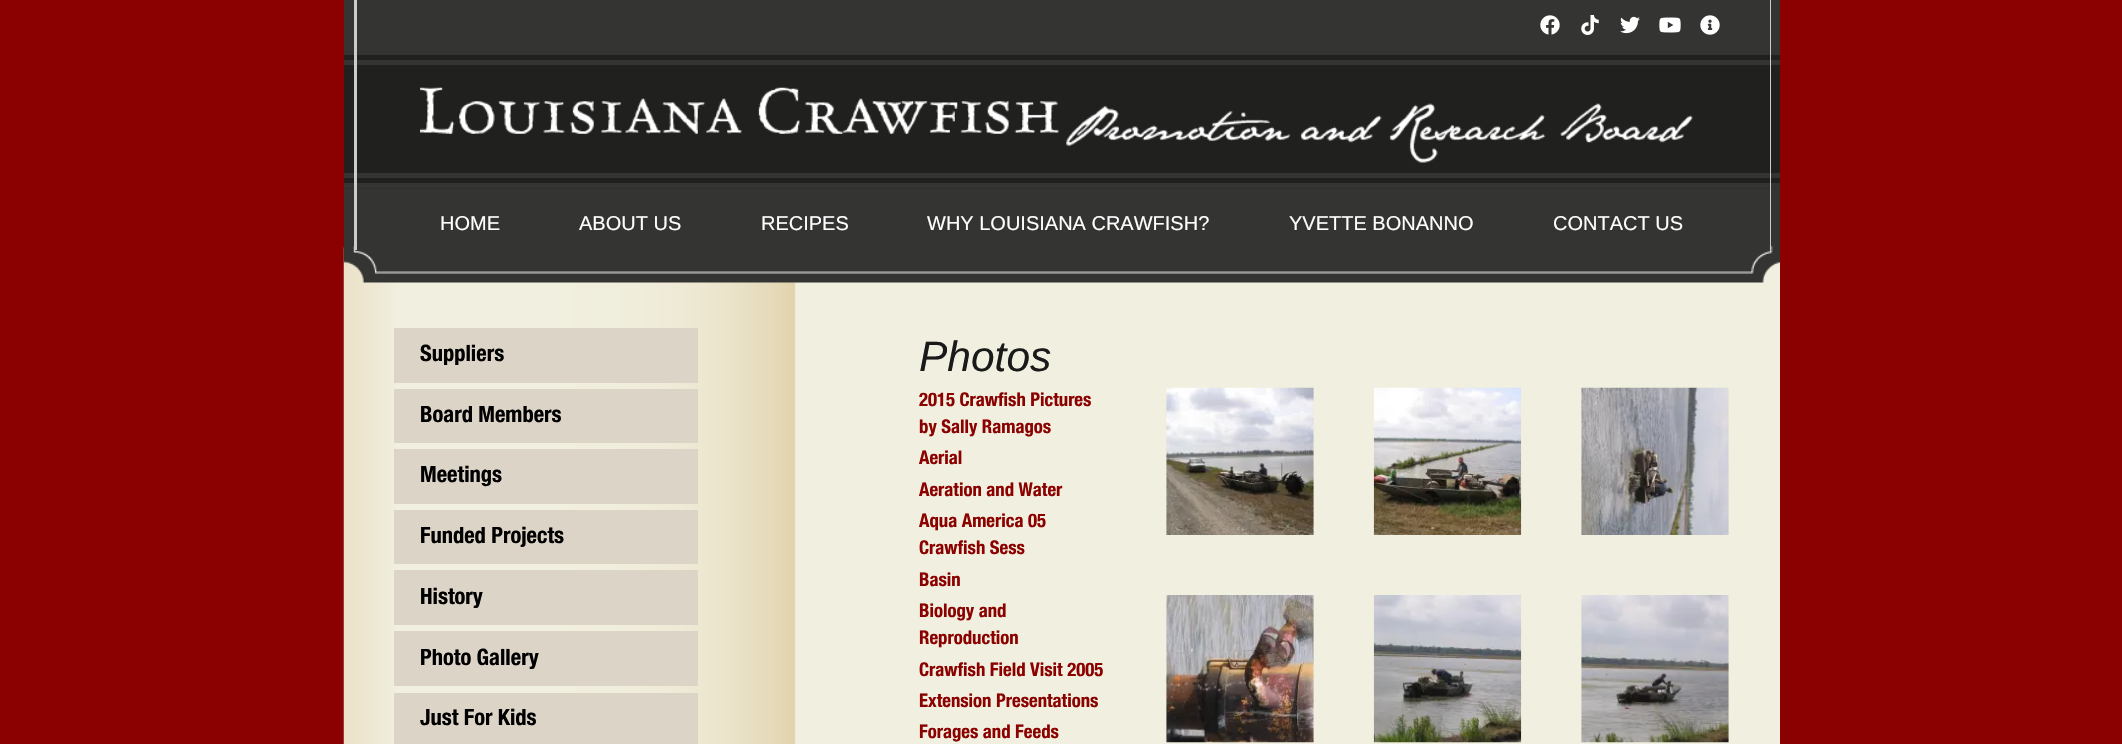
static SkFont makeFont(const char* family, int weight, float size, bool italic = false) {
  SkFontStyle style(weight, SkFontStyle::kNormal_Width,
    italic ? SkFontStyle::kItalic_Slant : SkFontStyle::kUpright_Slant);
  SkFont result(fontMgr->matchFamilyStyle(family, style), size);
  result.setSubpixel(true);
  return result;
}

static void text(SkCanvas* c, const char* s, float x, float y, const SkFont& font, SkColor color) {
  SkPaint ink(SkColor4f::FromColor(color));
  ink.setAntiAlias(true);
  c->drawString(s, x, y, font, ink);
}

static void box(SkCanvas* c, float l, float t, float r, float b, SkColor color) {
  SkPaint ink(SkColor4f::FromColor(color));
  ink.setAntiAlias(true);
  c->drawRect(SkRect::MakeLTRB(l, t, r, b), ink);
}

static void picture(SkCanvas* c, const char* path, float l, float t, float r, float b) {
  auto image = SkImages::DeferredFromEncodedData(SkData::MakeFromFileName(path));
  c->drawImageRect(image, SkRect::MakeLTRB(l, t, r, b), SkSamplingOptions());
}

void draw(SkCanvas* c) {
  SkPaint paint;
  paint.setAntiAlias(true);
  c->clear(0xff8b0000);
  box(c, 344, 0, 1780, 55, 0xff343433);
  box(c, 354, 0, 357, 50, 0xffcccccc);
  picture(c, "img_01.png", 1540, 15, 1560, 35);
  picture(c, "img_02.png", 1581, 15, 1599, 35);
  picture(c, "img_03.png", 1620, 16, 1640, 34);
  picture(c, "img_04.png", 1659, 17, 1681, 33);
  picture(c, "img_05.png", 1700, 15, 1720, 35);
  box(c, 1770, 0, 1771, 50, 0xffcccccc);
  box(c, 344, 188, 1780, 189, 0xff30302f);
  box(c, 344, 55, 1780, 183, 0xff20201f);
  box(c, 344, 60, 1780, 65, 0xff343433);
  box(c, 344, 173, 1780, 178, 0xff343433);
  box(c, 344, 183, 1780, 188, 0xff343433);
  box(c, 344, 189, 1780, 247, 0xff343433);
  picture(c, "img_09.png", 343, 247, 1780, 744);
  picture(c, "img_08.png", 343, 246, 1780, 283);
  box(c, 354, 50, 357, 250, 0xffcccccc);
  picture(c, "img_06.png", 420, 87, 1059, 134);
  picture(c, "img_07.png", 1066, 103, 1693, 163);
  box(c, 1770, 50, 1771, 250, 0xffcccccc);
  SkFont face1 = makeFont("Liberation Sans", 400, 20);
  text(c, "HOME", 440, 230, face1, 0xffffffff);
  text(c, "ABOUT US", 579, 230, face1, 0xffffffff);
  text(c, "RECIPES", 761, 230, face1, 0xffffffff);
  text(c, "WHY LOUISIANA CRAWFISH?", 927, 230, face1, 0xffffffff);
  text(c, "YVETTE BONANNO", 1289, 230, face1, 0xffffffff);
  text(c, "CONTACT US", 1553, 230, face1, 0xffffffff);
  box(c, 394, 328, 698, 383, 0xffdcd4c7);
  SkFont face2 = makeFont("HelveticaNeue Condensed", 700, 22.5f);
  text(c, "Suppliers", 420, 361, face2, 0xff000000);
  box(c, 394, 389, 698, 443, 0xffdcd4c7);
  text(c, "Board Members", 420, 422, face2, 0xff000000);
  box(c, 394, 449, 698, 504, 0xffdcd4c7);
  text(c, "Meetings", 420, 482, face2, 0xff000000);
  box(c, 394, 510, 698, 564, 0xffdcd4c7);
  text(c, "Funded Projects", 420, 543, face2, 0xff000000);
  box(c, 394, 570, 698, 625, 0xffdcd4c7);
  text(c, "History", 420, 604, face2, 0xff000000);
  box(c, 394, 631, 698, 686, 0xffdcd4c7);
  text(c, "Photo Gallery", 420, 665, face2, 0xff000000);
  box(c, 394, 693, 698, 744, 0xffdcd4c7);
  text(c, "Just For Kids", 420, 725, face2, 0xff000000);
  SkFont face3 = makeFont("Liberation Sans", 400, 42.5f, true);
  text(c, "Photos", 919, 371, face3, 0xff1a1a1a);
  SkFont face4 = makeFont("HelveticaNeue Condensed", 700, 18.75f);
  text(c, "2015 Crawfish Pictures", 919, 406, face4, 0xff8b0100);
  text(c, "by Sally Ramagos", 919, 433, face4, 0xff8b0100);
  text(c, "Aerial", 919, 464, face4, 0xff8b0100);
  text(c, "Aeration and Water", 919, 496, face4, 0xff8b0100);
  text(c, "Aqua America 05", 919, 527, face4, 0xff8b0100);
  text(c, "Crawfish Sess", 919, 554, face4, 0xff8b0100);
  text(c, "Basin", 919, 586, face4, 0xff8b0100);
  text(c, "Biology and", 919, 617, face4, 0xff8b0100);
  text(c, "Reproduction", 919, 644, face4, 0xff8b0100);
  text(c, "Crawfish Field Visit 2005", 919, 676, face4, 0xff8b0100);
  text(c, "Extension Presentations", 919, 707, face4, 0xff8b0100);
  text(c, "Forages and Feeds", 919, 738, face4, 0xff8b0100);
  picture(c, "img_10.png", 1166, 387, 1314, 535);
  picture(c, "img_11.png", 1373, 387, 1522, 535);
  picture(c, "img_12.png", 1581, 387, 1729, 535);
  picture(c, "img_13.png", 1166, 595, 1314, 743);
  picture(c, "img_14.png", 1373, 595, 1522, 743);
  picture(c, "img_15.png", 1581, 595, 1729, 743);
}
